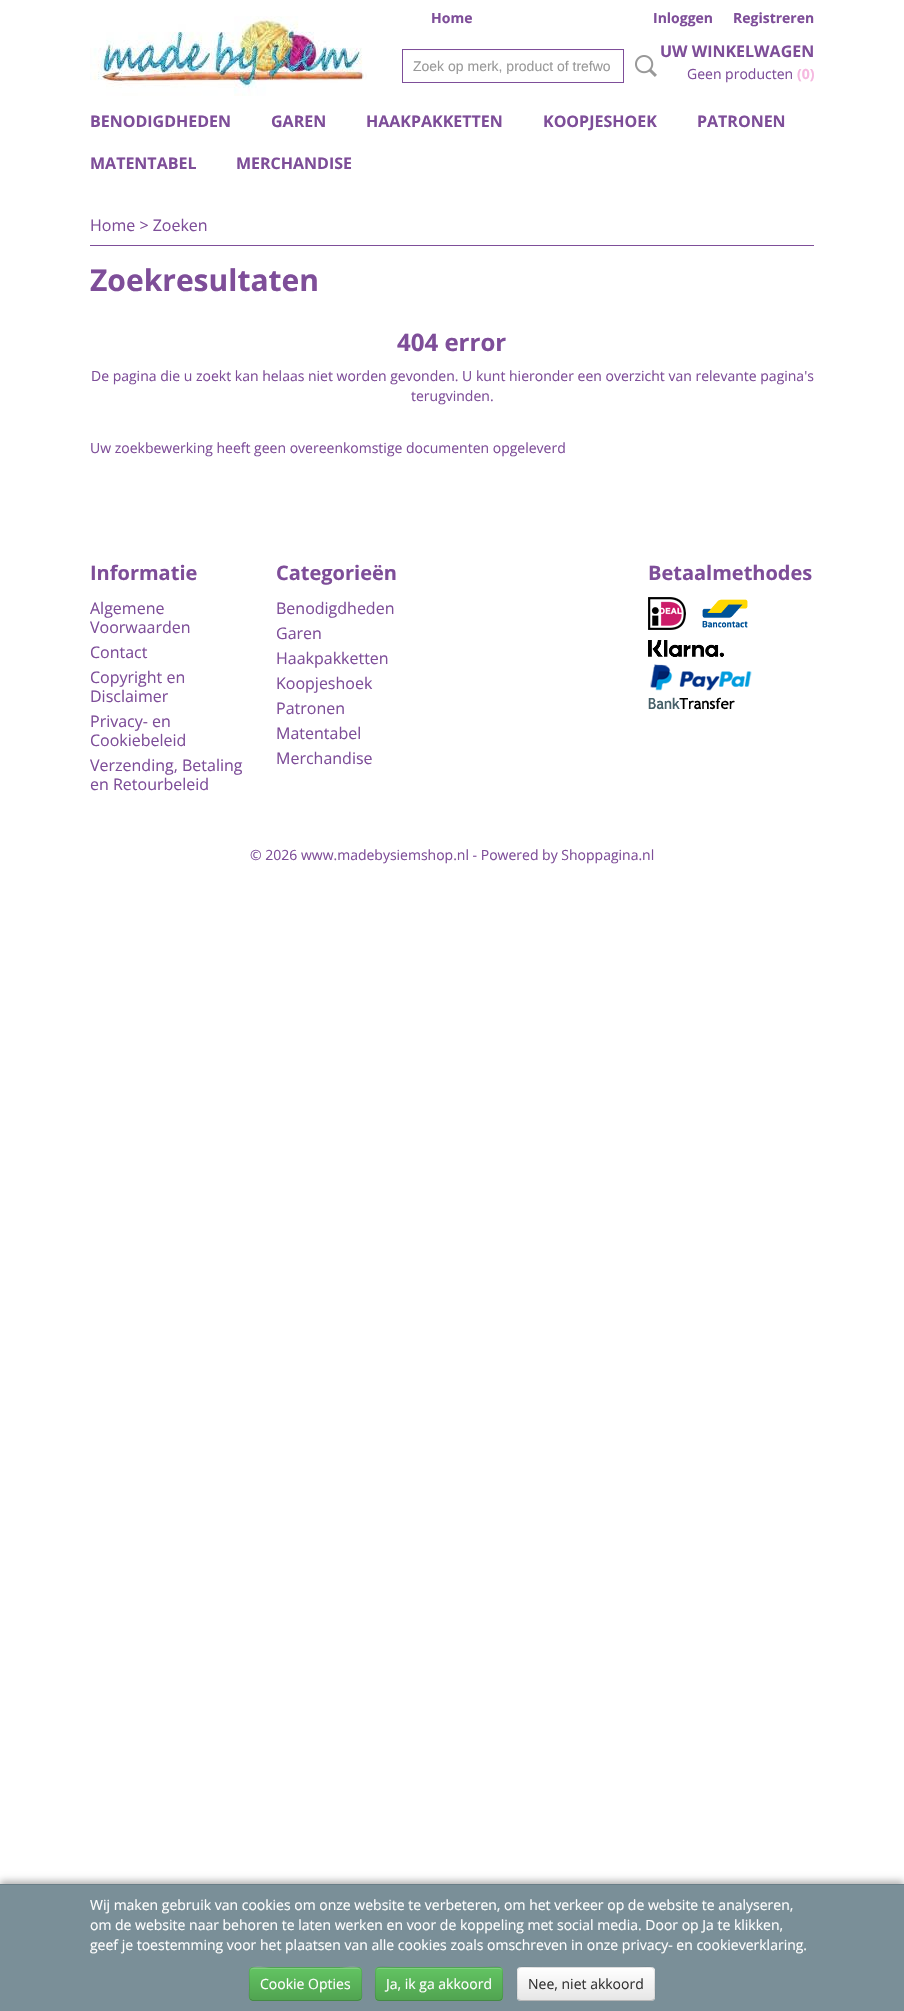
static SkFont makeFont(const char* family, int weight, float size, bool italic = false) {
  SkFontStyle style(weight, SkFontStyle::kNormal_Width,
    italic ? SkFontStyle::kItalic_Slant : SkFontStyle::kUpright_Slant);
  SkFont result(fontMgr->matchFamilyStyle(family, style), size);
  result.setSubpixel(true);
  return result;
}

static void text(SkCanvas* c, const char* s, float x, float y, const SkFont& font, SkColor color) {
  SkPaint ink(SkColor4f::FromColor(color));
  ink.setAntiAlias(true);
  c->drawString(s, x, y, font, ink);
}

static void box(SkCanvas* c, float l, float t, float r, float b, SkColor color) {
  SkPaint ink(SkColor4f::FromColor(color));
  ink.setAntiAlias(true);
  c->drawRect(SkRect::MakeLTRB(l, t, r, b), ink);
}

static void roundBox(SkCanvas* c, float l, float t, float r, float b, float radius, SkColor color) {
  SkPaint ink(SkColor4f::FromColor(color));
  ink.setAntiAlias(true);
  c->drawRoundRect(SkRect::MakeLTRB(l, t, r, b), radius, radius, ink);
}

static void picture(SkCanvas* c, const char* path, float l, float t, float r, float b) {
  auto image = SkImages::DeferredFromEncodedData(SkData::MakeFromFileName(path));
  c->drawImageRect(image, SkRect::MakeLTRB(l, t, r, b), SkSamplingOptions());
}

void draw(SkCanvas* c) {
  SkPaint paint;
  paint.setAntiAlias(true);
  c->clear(0xffffffff);
  picture(c, "img_01.png", 90, 16, 367, 96);
  SkFont face1 = makeFont("Open Sans", 700, 14);
  text(c, "Home", 431, 23, face1, 0xff7e4e99);
  text(c, "Inloggen", 653, 23, face1, 0xff7e4e99);
  text(c, "Registreren", 733, 23, face1, 0xff7e4e99);
  SkFont face2 = makeFont("Open Sans", 700, 16);
  text(c, "UW WINKELWAGEN", 660, 57, face2, 0xff7e4e99);
  SkFont face3 = makeFont("Open Sans", 400, 14);
  text(c, "Geen producten", 687, 79, face3, 0xff7e4e99);
  text(c, "(0)", 797, 79, face1, 0xfff5b8e0);
  box(c, 403, 50, 623, 51, 0xfffefafd);
  paint.setStyle(SkPaint::kStroke_Style);
  paint.setStrokeWidth(1);
  paint.setColor(0xff7e4e99);
  c->drawRect(SkRect::MakeLTRB(402.5f, 49.5f, 623.5f, 82.5f), paint);
  SkFont face4 = makeFont("Liberation Sans", 400, 14);
  text(c, "Zoek op merk, product of trefwo", 413, 71, face4, 0xff999999);
  picture(c, "img_02.png", 635, 55, 657, 77);
  text(c, "BENODIGDHEDEN", 90, 127, face2, 0xff7e4e99);
  text(c, "GAREN", 271, 127, face2, 0xff7e4e99);
  text(c, "HAAKPAKKETTEN", 366, 127, face2, 0xff7e4e99);
  text(c, "KOOPJESHOEK", 543, 127, face2, 0xff7e4e99);
  text(c, "PATRONEN", 697, 127, face2, 0xff7e4e99);
  text(c, "MATENTABEL", 90, 169, face2, 0xff7e4e99);
  text(c, "MERCHANDISE", 236, 169, face2, 0xff7e4e99);
  box(c, 90, 245, 814, 246, 0xff7e4e99);
  SkFont face5 = makeFont("Open Sans", 400, 16);
  text(c, "Home > Zoeken", 90, 231, face5, 0xff7e4e99);
  SkFont face6 = makeFont("Open Sans", 700, 30);
  text(c, "Zoekresultaten", 90, 291, face6, 0xff7e4e99);
  SkFont face7 = makeFont("Open Sans", 700, 24);
  text(c, "404 error", 397, 351, face7, 0xff7e4e99);
  text(c, "De pagina die u zoekt kan helaas niet worden gevonden. U kunt hieronder een overzicht van relevante pagina's", 91, 381, face3, 0xff7e4e99);
  text(c, "terugvinden.", 411, 401, face3, 0xff7e4e99);
  text(c, "Uw zoekbewerking heeft geen overeenkomstige documenten opgeleverd", 90, 453, face3, 0xff7e4e99);
  SkFont face8 = makeFont("Open Sans", 700, 20);
  text(c, "Informatie", 90, 580, face8, 0xff7e4e99);
  text(c, "Algemene", 90, 614, face5, 0xff7e4e99);
  text(c, "Voorwaarden", 90, 633, face5, 0xff7e4e99);
  text(c, "Contact", 90, 658, face5, 0xff7e4e99);
  text(c, "Copyright en", 90, 683, face5, 0xff7e4e99);
  text(c, "Disclaimer", 90, 702, face5, 0xff7e4e99);
  text(c, "Privacy- en", 90, 727, face5, 0xff7e4e99);
  text(c, "Cookiebeleid", 90, 746, face5, 0xff7e4e99);
  text(c, "Verzending, Betaling", 90, 771, face5, 0xff7e4e99);
  text(c, "en Retourbeleid", 90, 790, face5, 0xff7e4e99);
  text(c, "Categorieën", 276, 580, face8, 0xff7e4e99);
  text(c, "Benodigdheden", 276, 614, face5, 0xff7e4e99);
  text(c, "Garen", 276, 639, face5, 0xff7e4e99);
  text(c, "Haakpakketten", 276, 664, face5, 0xff7e4e99);
  text(c, "Koopjeshoek", 276, 689, face5, 0xff7e4e99);
  text(c, "Patronen", 276, 714, face5, 0xff7e4e99);
  text(c, "Matentabel", 276, 739, face5, 0xff7e4e99);
  text(c, "Merchandise", 276, 764, face5, 0xff7e4e99);
  text(c, "Betaalmethodes", 648, 580, face8, 0xff7e4e99);
  picture(c, "img_03.png", 648, 597, 686, 630);
  picture(c, "img_04.png", 702, 599, 748, 628);
  picture(c, "img_05.png", 648, 640, 724, 657);
  picture(c, "img_06.png", 650, 664, 752, 691);
  picture(c, "img_07.png", 648, 697, 735, 710);
  text(c, "© 2026 www.madebysiemshop.nl - Powered by Shoppagina.nl", 250, 860, face3, 0xff7e4e99);
  paint.setStyle(SkPaint::kFill_Style);
  paint.setColor(0x4d000000);
  paint.setMaskFilter(SkMaskFilter::MakeBlur(kNormal_SkBlurStyle, 3.5f));
  c->drawRect(SkRect::MakeLTRB(0, 1881, 904, 2008), paint);
  paint.setMaskFilter(nullptr);
  box(c, 0, 1885, 904, 2011, 0xff7a8f98);
  box(c, 0, 1884, 904, 1885, 0xff697e87);
  text(c, "Wij maken gebruik van cookies om onze website te verbeteren, om het verkeer op de website te analyseren,", 90, 1910, face3, 0xffffffff);
  text(c, "om de website naar behoren te laten werken en voor de koppeling met social media. Door op Ja te klikken,", 90, 1930, face3, 0xffffffff);
  text(c, "geef je toestemming voor het plaatsen van alle cookies zoals omschreven in onze privacy- en cookieverklaring.", 90, 1950, face3, 0xffffffff);
  roundBox(c, 249, 1967, 362, 2001, 4, 0xff5bb75b);
  c->save();
  c->clipPath(SkPathBuilder().moveTo(253, 1967).lineTo(358, 1967).cubicTo(360, 1967, 362, 1969, 362, 1971).lineTo(362, 1997).cubicTo(362, 1999, 360, 2001, 358, 2001).lineTo(253, 2001).cubicTo(251, 2001, 249, 1999, 249, 1997).lineTo(249, 1971).cubicTo(249, 1969, 251, 1967, 253, 1967).close().detach(), true);
  {
    const SkColor colors[] = {0xff62c462, 0xff51a351};
    const float stops[] = {0, 1};
    const SkPoint ends[] = {{306, 1968}, {306, 2000}};
    paint.setShader(SkGradientShader::MakeLinear(ends, colors, stops, 2, SkTileMode::kClamp));
    paint.setAlpha(255);
  }
  c->drawRect(SkRect::MakeLTRB(249, 1968, 362, 2000), paint);
  c->restore();
  paint.setShader(nullptr);
  paint.setColor(0x33ffffff);
  c->drawPath(SkPathBuilder().moveTo(253, 1969).lineTo(358, 1969).cubicTo(360, 1969, 361, 1970, 361, 1972).cubicTo(361, 1963, 343, 1968, 340, 1968).lineTo(270, 1968).cubicTo(268, 1968, 250, 1963, 250, 1972).cubicTo(250, 1970, 251, 1969, 253, 1969).close().detach(), paint);
  paint.setStyle(SkPaint::kStroke_Style);
  paint.setColor(0x40000000);
  c->drawPath(SkPathBuilder().moveTo(360.5f, 1999.5f).lineTo(358, 2000.5f).lineTo(252.5f, 2000.5f).lineTo(250.5f, 1999.5f).detach(), paint);
  paint.setColor(0x1a000000);
  c->drawPath(SkPathBuilder().moveTo(250.5f, 1999.5f).cubicTo(248, 1997, 249.5f, 1991, 249.5f, 1988.5f).cubicTo(249.5f, 1963.5f, 245, 1967.5f, 270.5f, 1967.5f).lineTo(340.5f, 1967.5f).cubicTo(366, 1967.5f, 361.5f, 1963.5f, 361.5f, 1988.5f).cubicTo(361.5f, 1991, 363, 1997, 360.5f, 1999.5f).detach(), paint);
  text(c, "Cookie Opties", 260, 1989, face3, 0xffffffff);
  roundBox(c, 375, 1967, 503, 2001, 4, 0xff5bb75b);
  c->save();
  c->clipPath(SkPathBuilder().moveTo(379, 1967).lineTo(499, 1967).cubicTo(501, 1967, 503, 1969, 503, 1971).lineTo(503, 1997).cubicTo(503, 1999, 501, 2001, 499, 2001).lineTo(379, 2001).cubicTo(377, 2001, 375, 1999, 375, 1997).lineTo(375, 1971).cubicTo(375, 1969, 377, 1967, 379, 1967).close().detach(), true);
  paint.setStyle(SkPaint::kFill_Style);
  {
    const SkColor colors[] = {0xff62c462, 0xff51a351};
    const float stops[] = {0, 1};
    const SkPoint ends[] = {{439, 1968}, {439, 2000}};
    paint.setShader(SkGradientShader::MakeLinear(ends, colors, stops, 2, SkTileMode::kClamp));
    paint.setAlpha(255);
  }
  c->drawRect(SkRect::MakeLTRB(375, 1968, 503, 2000), paint);
  c->restore();
  paint.setShader(nullptr);
  paint.setColor(0xff81cf81);
  c->drawPath(SkPathBuilder().moveTo(379, 1969).lineTo(499, 1969).cubicTo(501, 1969, 502, 1970, 502, 1972).cubicTo(502, 1970, 502, 1968, 500, 1968).lineTo(379, 1968).cubicTo(377, 1968, 376, 1970, 376, 1972).cubicTo(376, 1970, 377, 1969, 379, 1969).close().detach(), paint);
  paint.setStyle(SkPaint::kStroke_Style);
  paint.setColor(0x40000000);
  c->drawPath(SkPathBuilder().moveTo(501.5f, 1999.5f).cubicTo(501, 2000, 500, 2000.5f, 499, 2000.5f).lineTo(379, 2000.5f).cubicTo(378, 2000.5f, 377, 2000, 376.5f, 1999.5f).detach(), paint);
  paint.setColor(0x1a000000);
  c->drawPath(SkPathBuilder().moveTo(376.5f, 1999.5f).cubicTo(374.5f, 1997, 375.5f, 1987, 375.5f, 1984).cubicTo(375.5f, 1962.5f, 373.5f, 1967.5f, 399, 1967.5f).lineTo(479, 1967.5f).cubicTo(504.5f, 1967.5f, 502.5f, 1962.5f, 502.5f, 1984).cubicTo(502.5f, 1987, 503.5f, 1997, 501.5f, 1999.5f).detach(), paint);
  text(c, "Ja, ik ga akkoord", 386, 1989, face3, 0xffffffff);
  roundBox(c, 517, 1967, 655, 2001, 4, 0xfff5f5f5);
  c->save();
  c->clipPath(SkPathBuilder().moveTo(521, 1967).lineTo(651, 1967).cubicTo(653, 1967, 655, 1969, 655, 1971).lineTo(655, 1997).cubicTo(655, 1999, 653, 2001, 651, 2001).lineTo(521, 2001).cubicTo(519, 2001, 517, 1999, 517, 1997).lineTo(517, 1971).cubicTo(517, 1969, 519, 1967, 521, 1967).close().detach(), true);
  paint.setStyle(SkPaint::kFill_Style);
  {
    const SkColor colors[] = {0xffffffff, 0xffe6e6e6};
    const float stops[] = {0, 1};
    const SkPoint ends[] = {{586, 1968}, {586, 2000}};
    paint.setShader(SkGradientShader::MakeLinear(ends, colors, stops, 2, SkTileMode::kClamp));
    paint.setAlpha(255);
  }
  c->drawRect(SkRect::MakeLTRB(517, 1968, 655, 2000), paint);
  c->restore();
  paint.setStyle(SkPaint::kStroke_Style);
  paint.setShader(nullptr);
  paint.setColor(0x40000000);
  c->drawPath(SkPathBuilder().moveTo(653.5f, 1999.5f).cubicTo(653, 2000, 652, 2000.5f, 651, 2000.5f).lineTo(521, 2000.5f).cubicTo(520, 2000.5f, 519, 2000, 518.5f, 1999.5f).detach(), paint);
  paint.setColor(0x1a000000);
  c->drawPath(SkPathBuilder().moveTo(518.5f, 1999.5f).cubicTo(516, 1997, 517.5f, 1991, 517.5f, 1988.5f).cubicTo(517.5f, 1962, 513.5f, 1967.5f, 542.5f, 1967.5f).lineTo(629.5f, 1967.5f).cubicTo(658.5f, 1967.5f, 654.5f, 1962, 654.5f, 1988.5f).cubicTo(654.5f, 1991, 656, 1997, 653.5f, 1999.5f).detach(), paint);
  text(c, "Nee, niet akkoord", 528, 1989, face3, 0xff333333);
}
